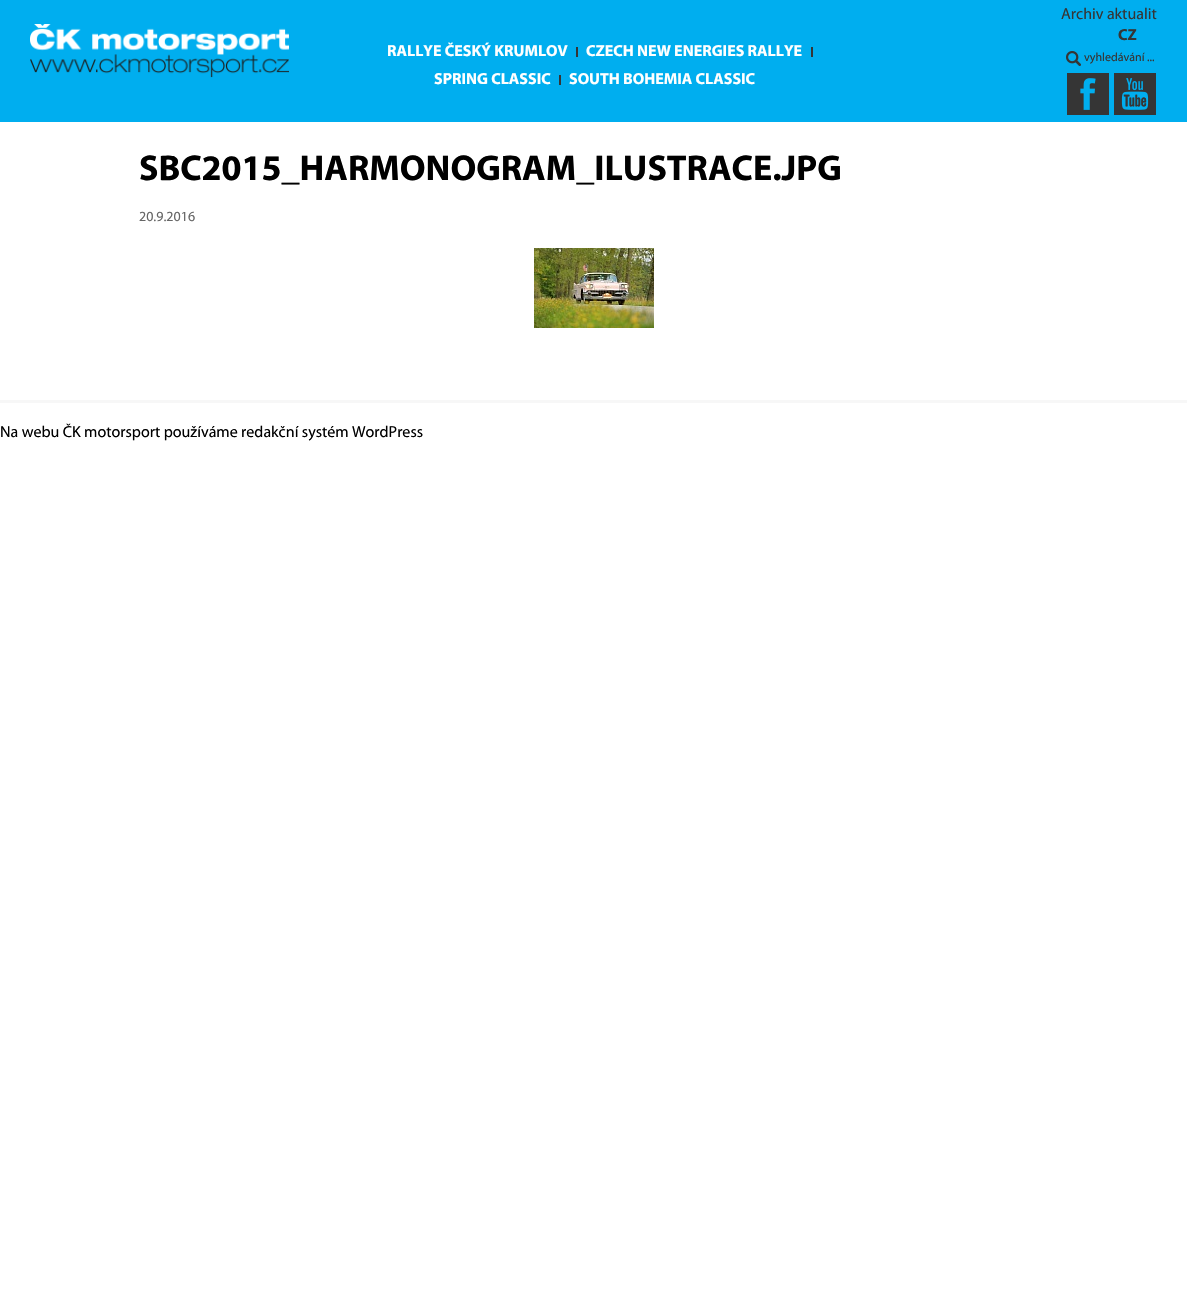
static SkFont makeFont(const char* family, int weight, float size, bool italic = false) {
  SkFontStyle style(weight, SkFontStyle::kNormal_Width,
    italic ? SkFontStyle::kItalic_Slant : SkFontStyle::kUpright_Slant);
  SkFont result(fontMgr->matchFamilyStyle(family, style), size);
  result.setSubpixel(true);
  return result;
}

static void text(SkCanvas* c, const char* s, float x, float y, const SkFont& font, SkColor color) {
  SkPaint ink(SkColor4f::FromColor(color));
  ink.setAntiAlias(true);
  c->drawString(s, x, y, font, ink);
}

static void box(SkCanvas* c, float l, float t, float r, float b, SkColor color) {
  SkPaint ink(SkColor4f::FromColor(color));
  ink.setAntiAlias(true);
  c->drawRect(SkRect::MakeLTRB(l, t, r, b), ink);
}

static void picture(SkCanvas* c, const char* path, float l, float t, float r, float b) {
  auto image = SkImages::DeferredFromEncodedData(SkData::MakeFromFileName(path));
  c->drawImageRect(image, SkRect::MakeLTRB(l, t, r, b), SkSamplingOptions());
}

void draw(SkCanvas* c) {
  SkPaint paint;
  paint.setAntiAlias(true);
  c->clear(0xffffffff);
  box(c, 0, 0, 1187, 122, 0xff00aeef);
  picture(c, "img_01.png", 30, 24, 289, 78);
  SkFont face1 = makeFont("Myriad", 700, 16);
  text(c, "RALLYE ČESKÝ KRUMLOV", 387, 56, face1, 0xffffffff);
  box(c, 576, 47, 578, 57, 0xff353535);
  text(c, "CZECH NEW ENERGIES RALLYE", 586, 56, face1, 0xffffffff);
  box(c, 811, 47, 813, 57, 0xff353535);
  text(c, "SPRING CLASSIC", 434, 84, face1, 0xffffffff);
  box(c, 559, 75, 561, 85, 0xff353535);
  text(c, "SOUTH BOHEMIA CLASSIC", 569, 84, face1, 0xffffffff);
  SkFont face2 = makeFont("Myriad", 400, 16);
  text(c, "Archiv aktualit", 1061, 19, face2, 0xff353535);
  text(c, "CZ", 1118, 40, face1, 0xff353535);
  picture(c, "img_02.png", 1066, 51, 1081, 66);
  SkFont face3 = makeFont("Myriad", 400, 12);
  text(c, "vyhledávání ...", 1084, 61, face3, 0xff353535);
  picture(c, "img_03.png", 1067, 73, 1109, 115);
  picture(c, "img_04.png", 1114, 73, 1156, 115);
  SkFont face4 = makeFont("Myriad", 700, 36);
  text(c, "SBC2015_HARMONOGRAM_ILUSTRACE.JPG", 139, 180, face4, 0xff000000);
  SkFont face5 = makeFont("Myriad", 400, 14);
  text(c, "20.9.2016", 139, 221, face5, 0xff666666);
  picture(c, "img_05.png", 534, 248, 654, 328);
  box(c, 0, 400, 1187, 403, 0xfff7f7f7);
  text(c, "Na webu ČK motorsport používáme redakční systém WordPress", 0, 437, face2, 0xff000000);
}
